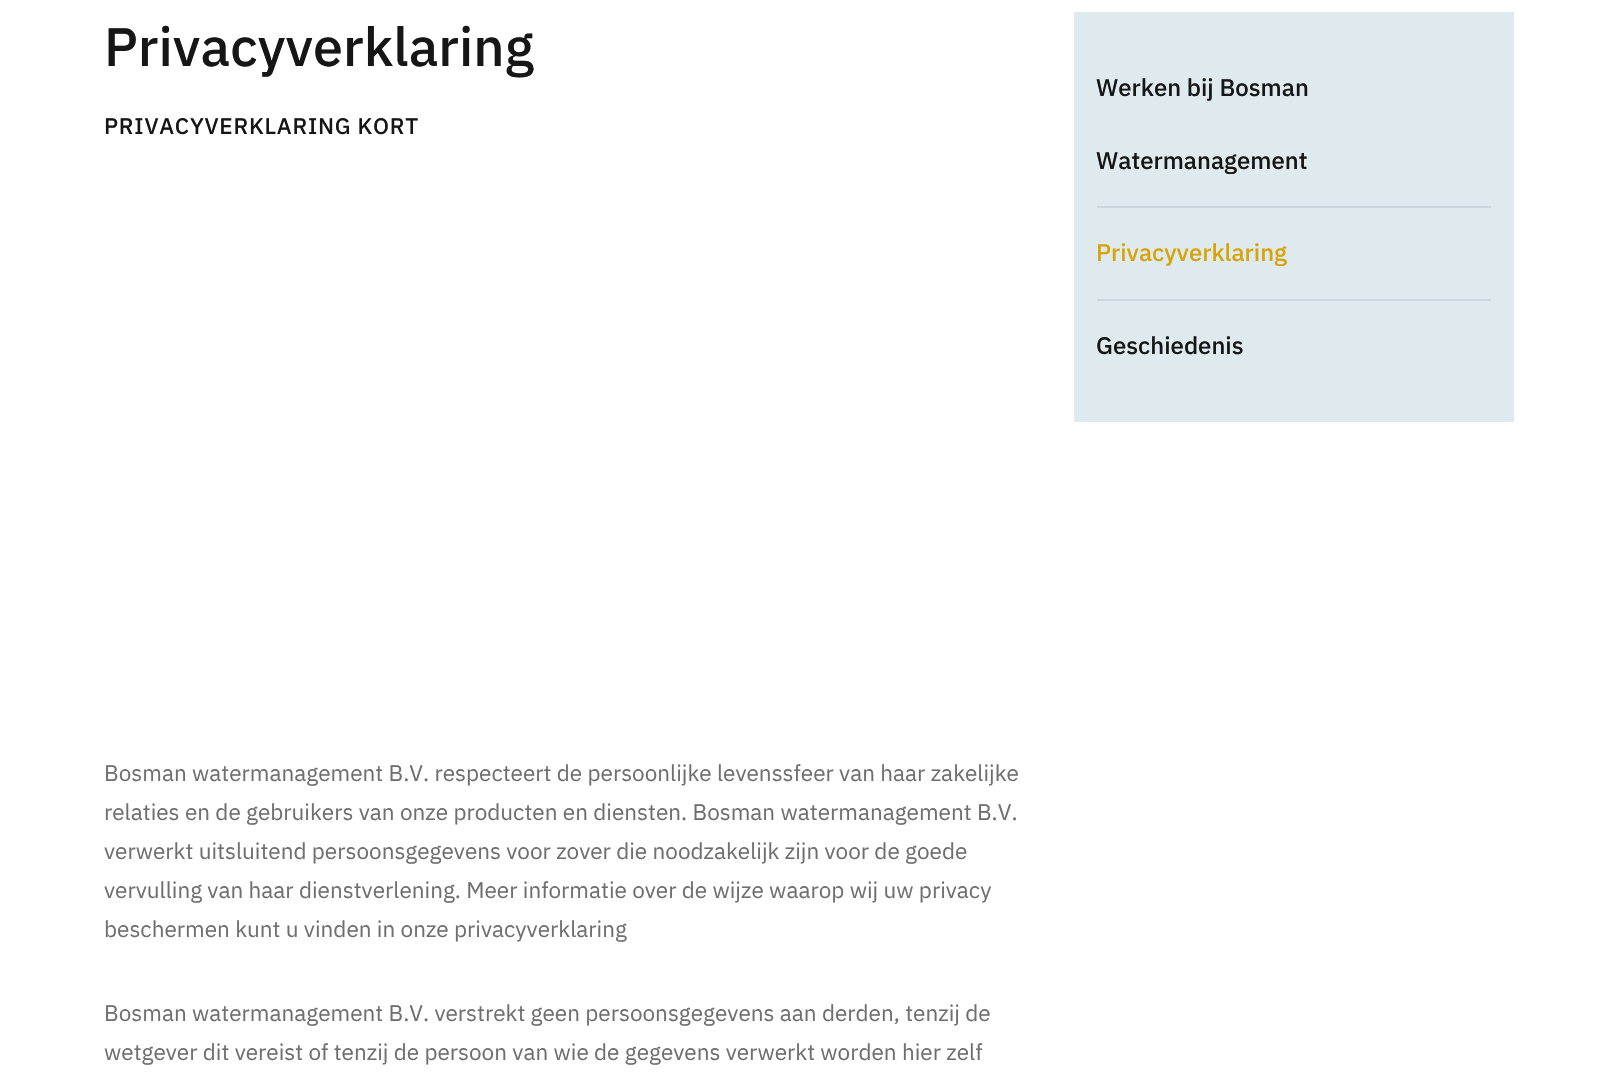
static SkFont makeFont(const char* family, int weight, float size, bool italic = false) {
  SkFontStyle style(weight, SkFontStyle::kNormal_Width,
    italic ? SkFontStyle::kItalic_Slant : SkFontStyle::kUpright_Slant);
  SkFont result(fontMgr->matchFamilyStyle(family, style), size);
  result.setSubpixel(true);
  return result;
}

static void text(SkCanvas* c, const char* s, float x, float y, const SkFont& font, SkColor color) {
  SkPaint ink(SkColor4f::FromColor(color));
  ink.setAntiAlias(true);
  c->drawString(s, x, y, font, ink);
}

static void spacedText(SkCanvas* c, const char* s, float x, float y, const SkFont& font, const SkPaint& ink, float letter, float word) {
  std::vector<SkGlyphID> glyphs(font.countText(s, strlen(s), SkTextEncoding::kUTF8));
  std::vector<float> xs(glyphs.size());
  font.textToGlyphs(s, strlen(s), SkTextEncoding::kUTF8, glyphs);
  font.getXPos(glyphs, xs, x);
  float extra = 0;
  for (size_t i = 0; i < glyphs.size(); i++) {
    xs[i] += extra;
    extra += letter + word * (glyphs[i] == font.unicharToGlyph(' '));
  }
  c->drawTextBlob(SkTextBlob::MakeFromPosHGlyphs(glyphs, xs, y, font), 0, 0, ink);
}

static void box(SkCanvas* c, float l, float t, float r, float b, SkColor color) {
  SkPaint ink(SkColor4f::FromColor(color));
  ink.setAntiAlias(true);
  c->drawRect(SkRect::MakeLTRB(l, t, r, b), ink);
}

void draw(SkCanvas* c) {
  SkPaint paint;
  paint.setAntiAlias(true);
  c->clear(0xffffffff);
  SkFont face1 = makeFont("IBM Plex Sans", 500, 54);
  text(c, "Privacyverklaring", 104, 66, face1, 0xff161616);
  SkFont face2 = makeFont("IBM Plex Sans", 500, 22.5f);
  paint.setColor(0xff161616);
  spacedText(c, "PRIVACYVERKLARING KORT", 104, 134, face2, paint, 0.75f, 0);
  SkFont face3 = makeFont("IBM Plex Sans", 400, 22.5f);
  text(c, "Bosman watermanagement B.V. respecteert de persoonlijke levenssfeer van haar zakelijke", 104, 781, face3, 0xff6f6f6f);
  text(c, "relaties en de gebruikers van onze producten en diensten. Bosman watermanagement B.V.", 104, 820, face3, 0xff6f6f6f);
  text(c, "verwerkt uitsluitend persoonsgegevens voor zover die noodzakelijk zijn voor de goede", 104, 859, face3, 0xff6f6f6f);
  text(c, "vervulling van haar dienstverlening. Meer informatie over de wijze waarop wij uw privacy", 104, 898, face3, 0xff6f6f6f);
  text(c, "beschermen kunt u vinden in onze privacyverklaring", 104, 937, face3, 0xff6f6f6f);
  text(c, "Bosman watermanagement B.V. verstrekt geen persoonsgegevens aan derden, tenzij de", 104, 1021, face3, 0xff6f6f6f);
  text(c, "wetgever dit vereist of tenzij de persoon van wie de gegevens verwerkt worden hier zelf", 104, 1060, face3, 0xff6f6f6f);
  box(c, 1074, 12, 1514, 422, 0xffdfeaef);
  box(c, 1097, 206, 1491, 208, 0xffcad6dc);
  SkFont face4 = makeFont("IBM Plex Sans", 500, 24);
  text(c, "Werken bij Bosman", 1096, 96, face4, 0xff161616);
  text(c, "Watermanagement", 1096, 169, face4, 0xff161616);
  box(c, 1097, 299, 1491, 301, 0xffcad6dc);
  text(c, "Privacyverklaring", 1096, 261, face4, 0xffd7a308);
  text(c, "Geschiedenis", 1096, 354, face4, 0xff161616);
}
